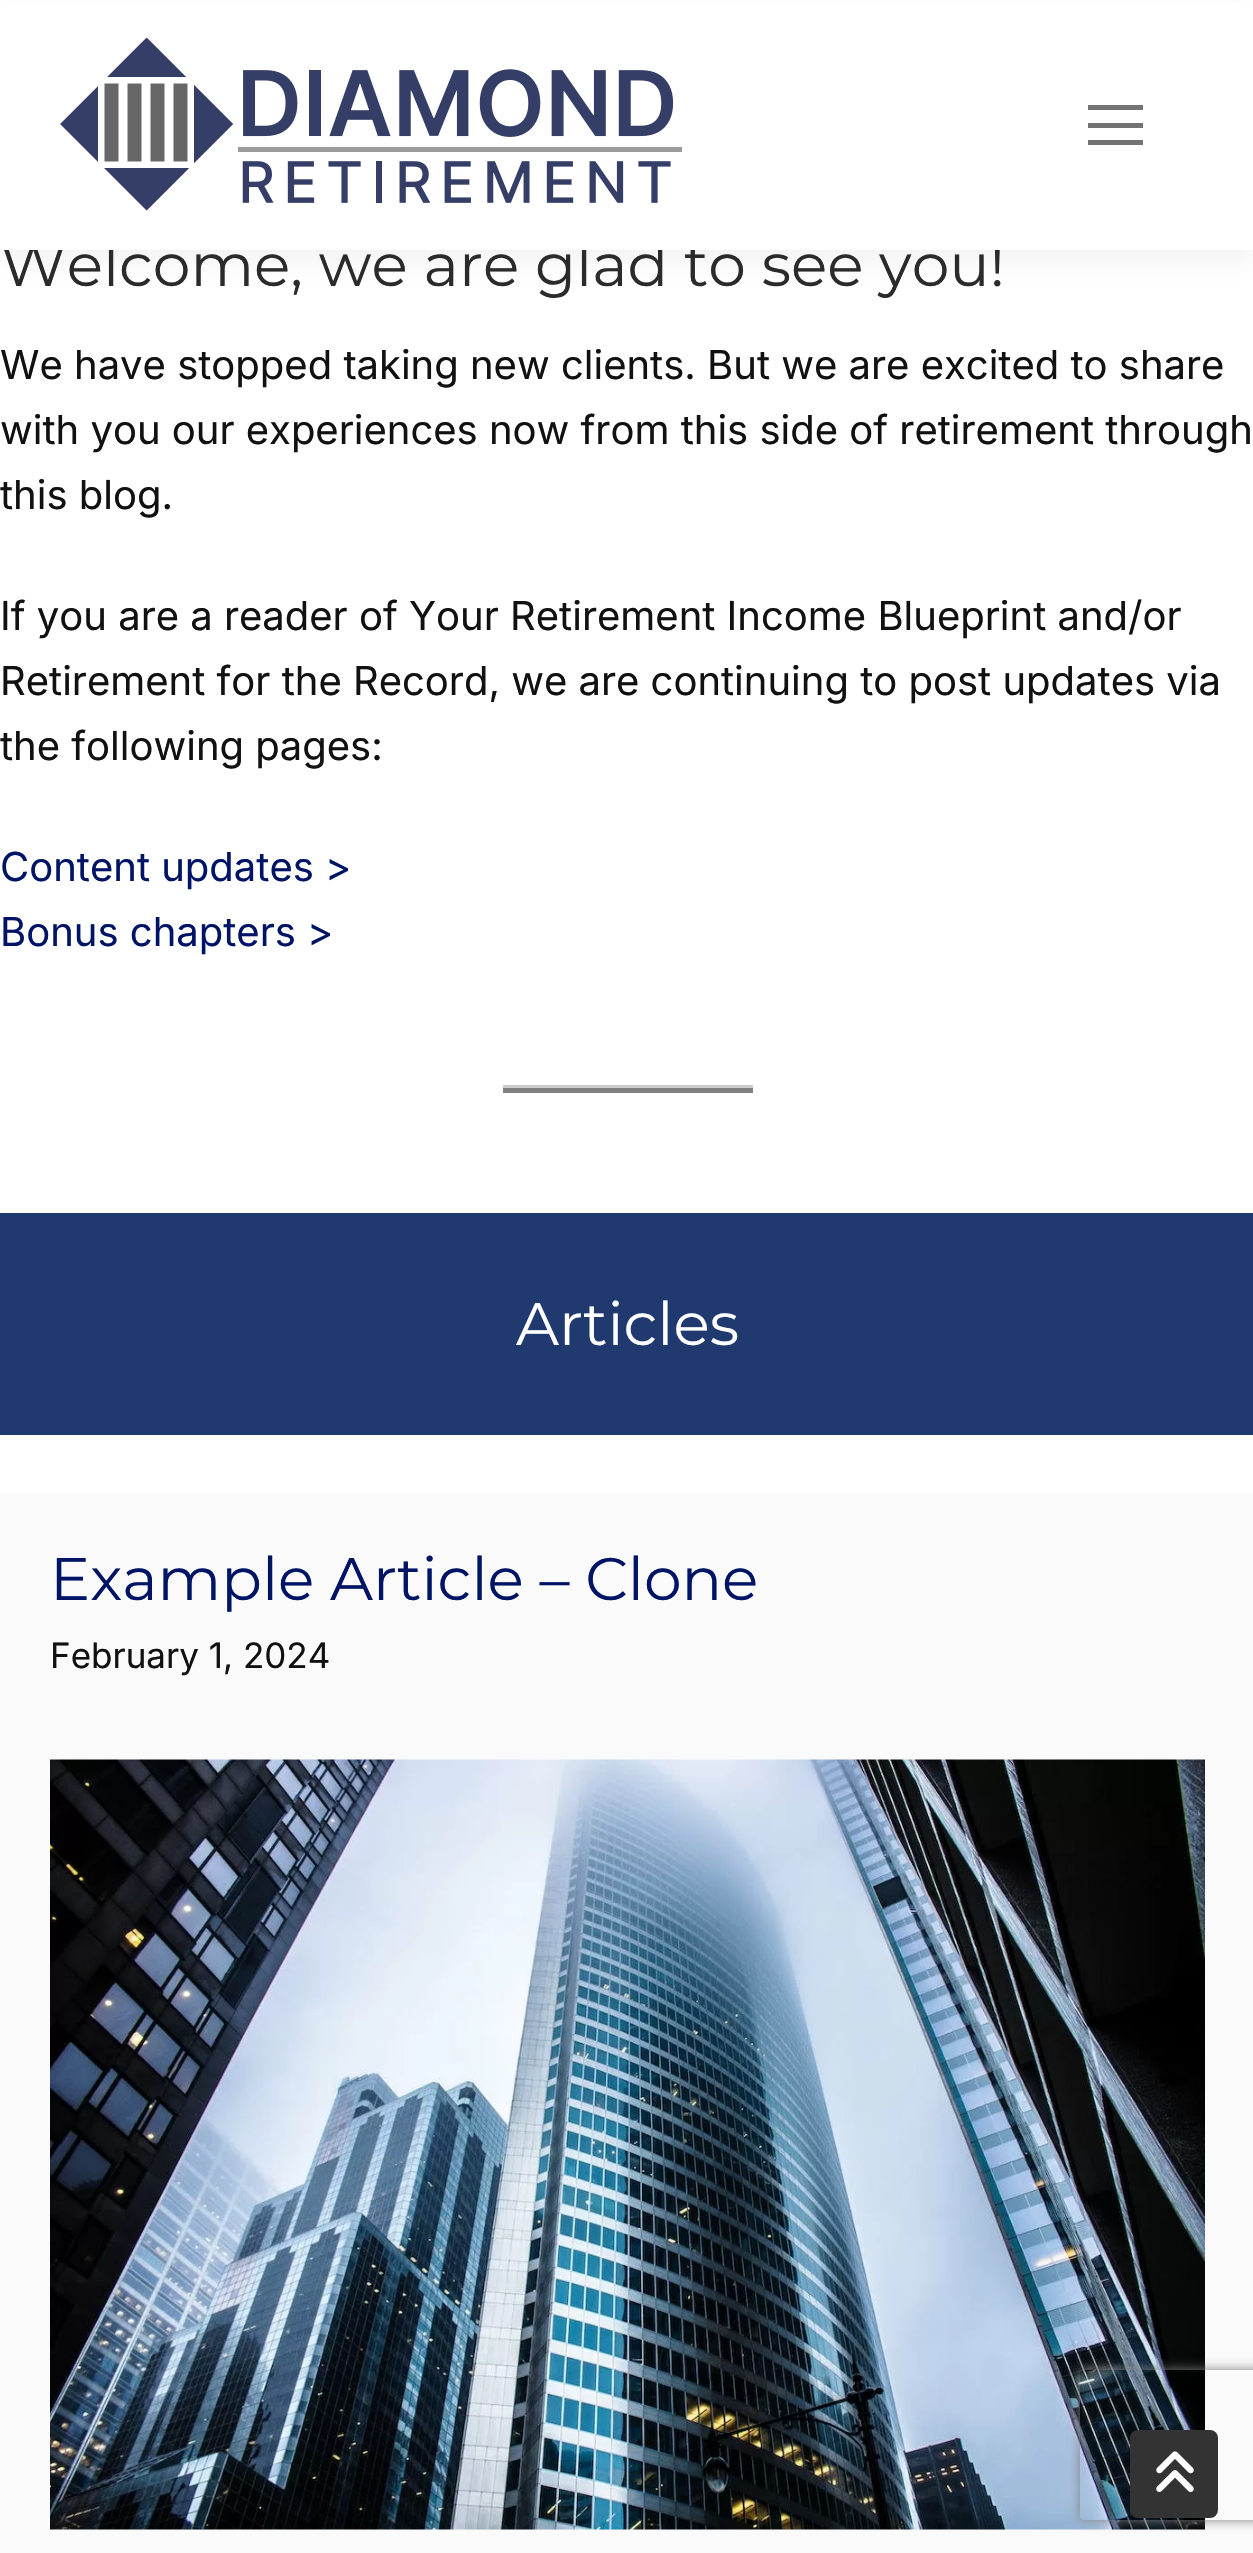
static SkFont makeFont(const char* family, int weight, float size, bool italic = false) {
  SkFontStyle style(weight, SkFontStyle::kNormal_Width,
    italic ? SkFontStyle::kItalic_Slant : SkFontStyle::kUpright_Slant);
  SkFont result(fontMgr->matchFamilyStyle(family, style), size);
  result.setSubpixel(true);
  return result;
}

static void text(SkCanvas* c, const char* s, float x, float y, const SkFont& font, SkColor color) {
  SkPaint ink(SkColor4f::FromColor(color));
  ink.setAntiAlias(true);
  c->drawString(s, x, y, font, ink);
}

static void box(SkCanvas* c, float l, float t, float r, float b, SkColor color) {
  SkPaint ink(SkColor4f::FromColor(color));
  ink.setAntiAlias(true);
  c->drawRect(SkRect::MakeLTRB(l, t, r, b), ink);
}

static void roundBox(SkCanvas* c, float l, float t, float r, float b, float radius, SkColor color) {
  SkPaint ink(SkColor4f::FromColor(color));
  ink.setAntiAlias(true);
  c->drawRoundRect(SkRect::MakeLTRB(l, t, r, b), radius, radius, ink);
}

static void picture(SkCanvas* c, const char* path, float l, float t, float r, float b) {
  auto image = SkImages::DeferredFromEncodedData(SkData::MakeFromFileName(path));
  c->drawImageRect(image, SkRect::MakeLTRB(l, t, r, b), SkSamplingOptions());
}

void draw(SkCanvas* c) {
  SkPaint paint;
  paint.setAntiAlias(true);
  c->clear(0xffffffff);
  paint.setColor(0x0f323232);
  paint.setMaskFilter(SkMaskFilter::MakeBlur(kNormal_SkBlurStyle, 12.5f));
  c->drawRect(SkRect::MakeLTRB(0, 13, 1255, 263), paint);
  paint.setMaskFilter(nullptr);
  SkFont face1 = makeFont("Montserrat", 400, 60);
  text(c, "Welcome, we are glad to see you!", 0, 286, face1, 0xff2b2b2b);
  box(c, 0, 3, 1253, 250, 0xffffffff);
  picture(c, "img_01.png", 60, 38, 682, 211);
  box(c, 1088, 123, 1143, 128, 0xff737373);
  box(c, 1088, 105, 1143, 110, 0xff737373);
  box(c, 1088, 140, 1143, 145, 0xff737373);
  SkFont face2 = makeFont("Inter", 400, 40);
  text(c, "We have stopped taking new clients. But we are excited to share", 0, 379, face2, 0xff111111);
  text(c, "with you our experiences now from this side of retirement through", 0, 444, face2, 0xff111111);
  text(c, "this blog.", 0, 509, face2, 0xff111111);
  text(c, "If you are a reader of Your Retirement Income Blueprint and/or", 0, 630, face2, 0xff111111);
  text(c, "Retirement for the Record, we are continuing to post updates via", 0, 695, face2, 0xff111111);
  text(c, "the following pages:", 0, 760, face2, 0xff111111);
  text(c, "Content updates >", 0, 881, face2, 0xff001466);
  text(c, "Bonus chapters >", 0, 946, face2, 0xff001466);
  box(c, 503, 1085, 753, 1088, 0xffcccccc);
  box(c, 503, 1088, 753, 1093, 0xff808080);
  box(c, 0, 1213, 1253, 1435, 0xff203a70);
  text(c, "Articles", 516, 1345, face1, 0xffffffff);
  box(c, 0, 1493, 1253, 2553, 0xfffafafa);
  text(c, "Example Article – Clone", 50, 1600, face1, 0xff001466);
  SkFont face3 = makeFont("Inter", 400, 35);
  text(c, "February 1, 2024", 50, 1668, face3, 0xff111111);
  picture(c, "img_02.png", 50, 1759, 1205, 2530);
  c->save();
  c->clipPath(SkPathBuilder(SkPathFillType::kEvenOdd).moveTo(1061, 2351).lineTo(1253, 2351).lineTo(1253, 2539).lineTo(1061, 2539).close().moveTo(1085, 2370).lineTo(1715, 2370).cubicTo(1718, 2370, 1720, 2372, 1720, 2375).lineTo(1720, 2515).cubicTo(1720, 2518, 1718, 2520, 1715, 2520).lineTo(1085, 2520).cubicTo(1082, 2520, 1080, 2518, 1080, 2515).lineTo(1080, 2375).cubicTo(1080, 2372, 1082, 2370, 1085, 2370).close().detach(), true);
  paint.setColor(0xff808080);
  paint.setMaskFilter(SkMaskFilter::MakeBlur(kNormal_SkBlurStyle, 6));
  c->drawRoundRect(SkRect::MakeLTRB(1080, 2370, 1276, 2520), 5, 5, paint);
  paint.setMaskFilter(nullptr);
  c->restore();
  roundBox(c, 1130, 2430, 1218, 2518, 8, 0xff333333);
  picture(c, "img_03.png", 1156, 2451, 1194, 2492);
}
